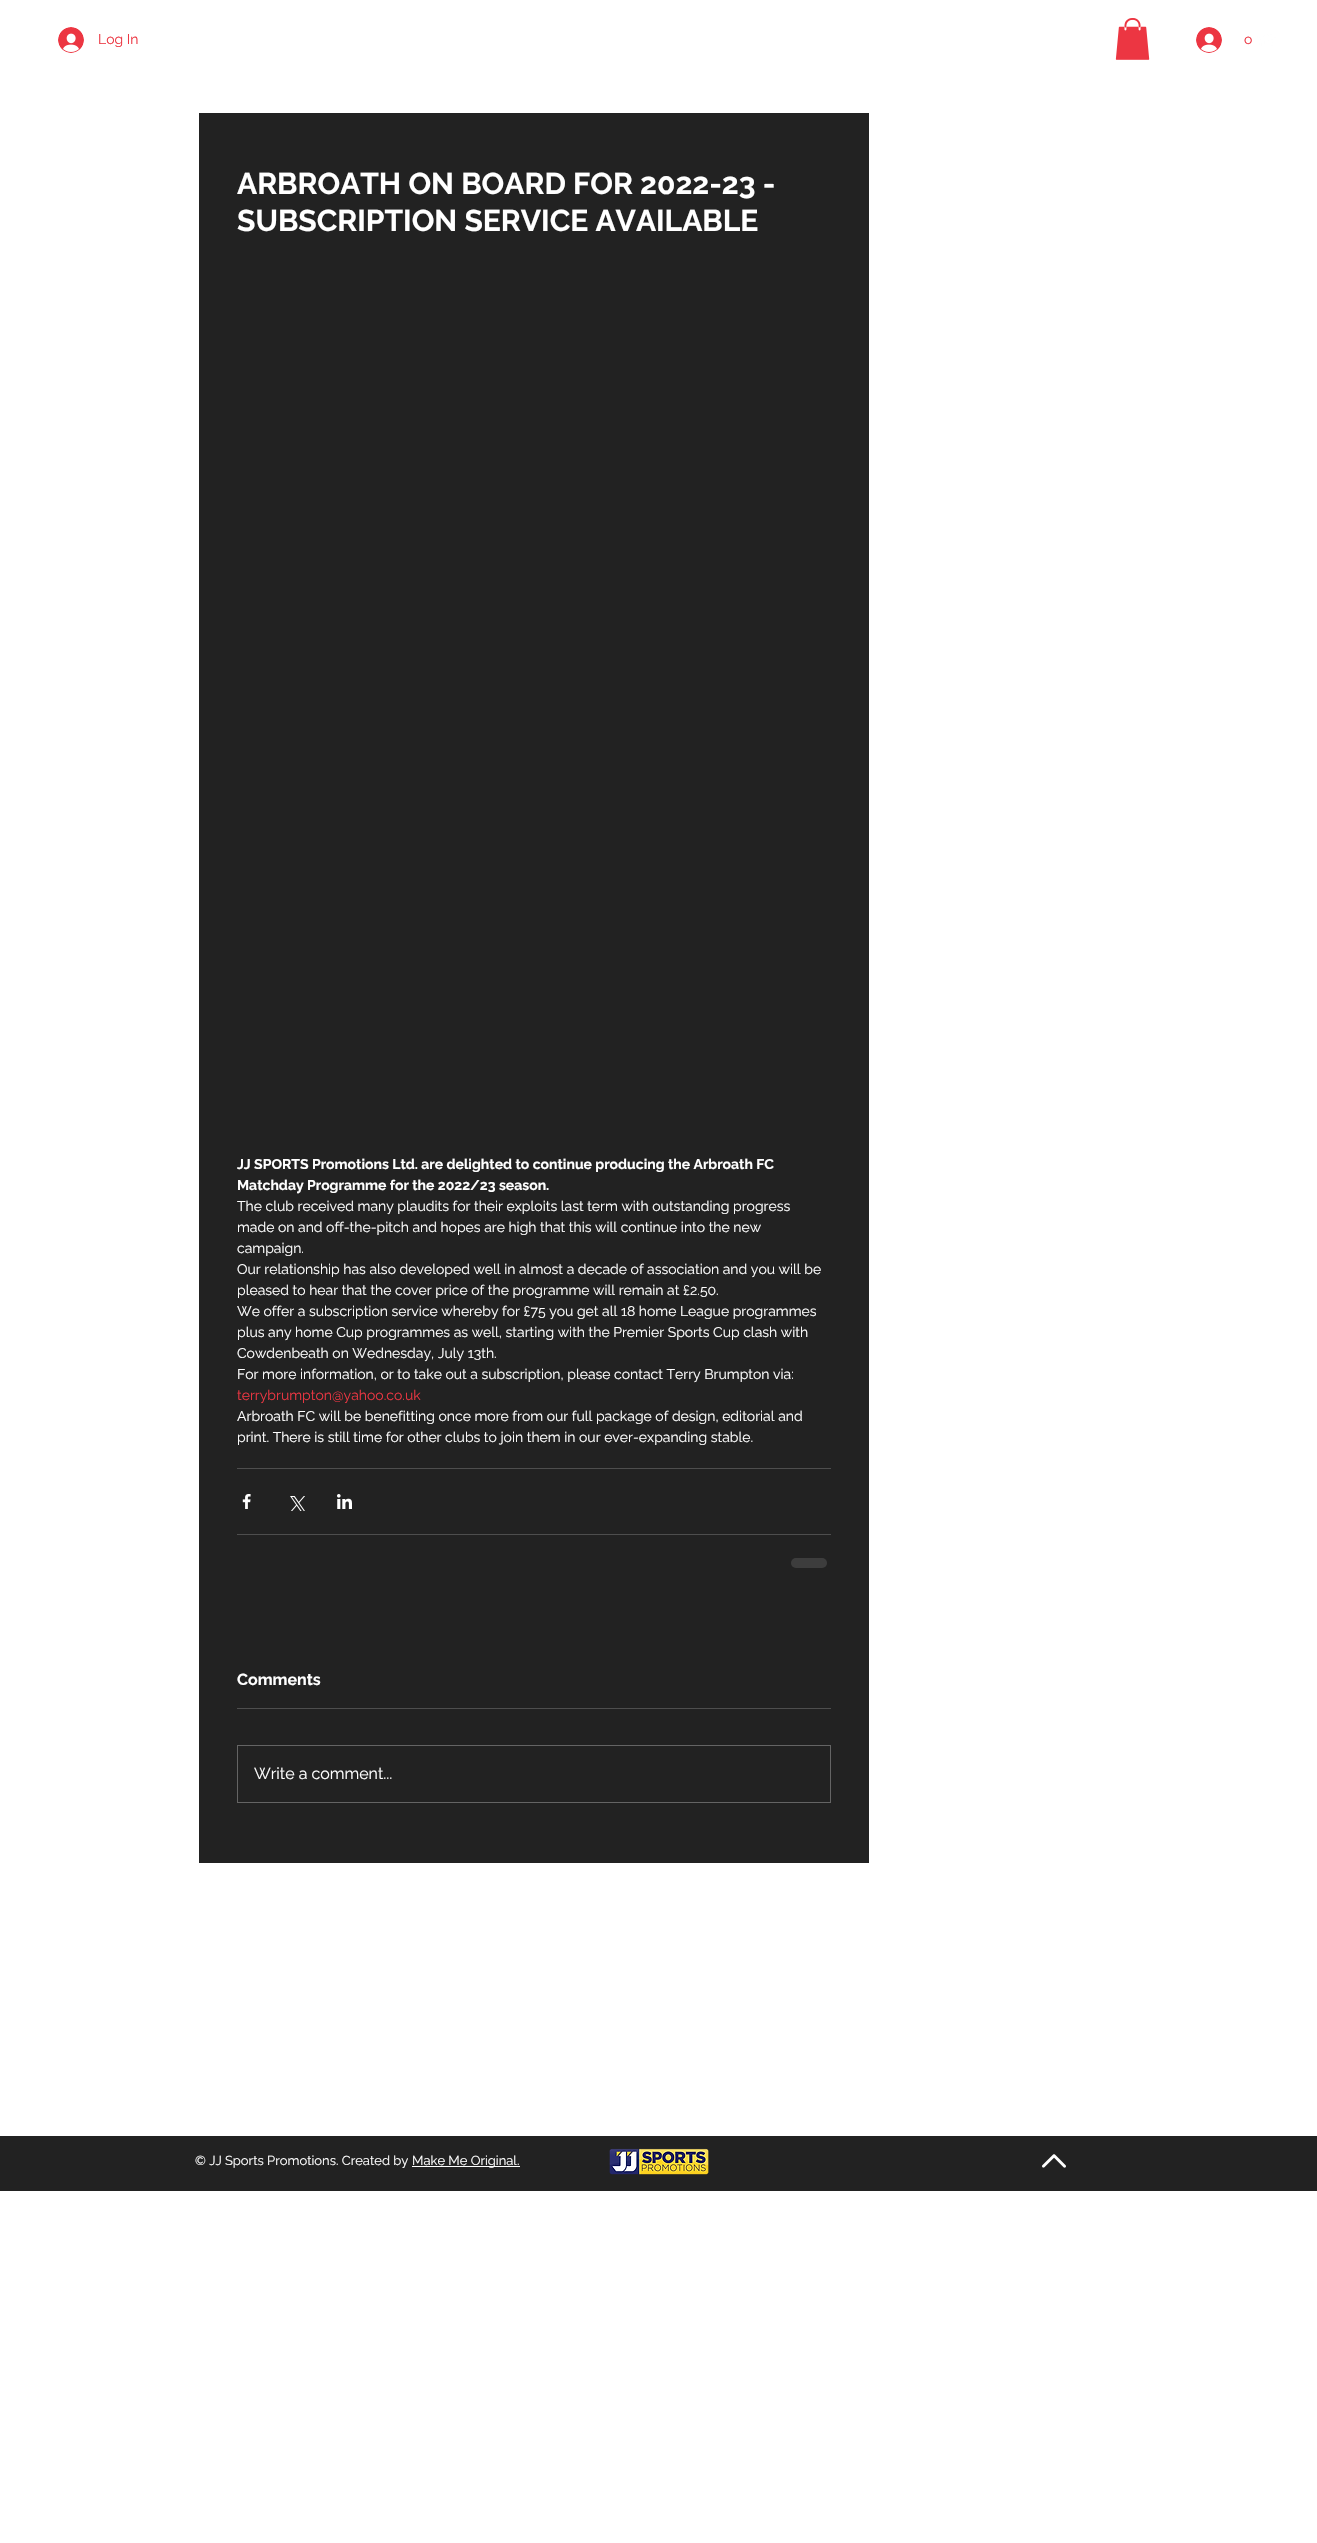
static SkFont makeFont(const char* family, int weight, float size, bool italic = false) {
  SkFontStyle style(weight, SkFontStyle::kNormal_Width,
    italic ? SkFontStyle::kItalic_Slant : SkFontStyle::kUpright_Slant);
  SkFont result(fontMgr->matchFamilyStyle(family, style), size);
  result.setSubpixel(true);
  return result;
}

static void text(SkCanvas* c, const char* s, float x, float y, const SkFont& font, SkColor color) {
  SkPaint ink(SkColor4f::FromColor(color));
  ink.setAntiAlias(true);
  c->drawString(s, x, y, font, ink);
}

static void box(SkCanvas* c, float l, float t, float r, float b, SkColor color) {
  SkPaint ink(SkColor4f::FromColor(color));
  ink.setAntiAlias(true);
  c->drawRect(SkRect::MakeLTRB(l, t, r, b), ink);
}

static void roundBox(SkCanvas* c, float l, float t, float r, float b, float radius, SkColor color) {
  SkPaint ink(SkColor4f::FromColor(color));
  ink.setAntiAlias(true);
  c->drawRoundRect(SkRect::MakeLTRB(l, t, r, b), radius, radius, ink);
}

static void picture(SkCanvas* c, const char* path, float l, float t, float r, float b) {
  auto image = SkImages::DeferredFromEncodedData(SkData::MakeFromFileName(path));
  c->drawImageRect(image, SkRect::MakeLTRB(l, t, r, b), SkSamplingOptions());
}

void draw(SkCanvas* c) {
  SkPaint paint;
  paint.setAntiAlias(true);
  c->clear(0xffffffff);
  picture(c, "img_01.png", 58, 27, 84, 53);
  SkFont face1 = makeFont("Raleway", 400, 14);
  text(c, "Log In", 98, 44, face1, 0xffec3642);
  picture(c, "img_02.png", 1115, 18, 1150, 60);
  picture(c, "img_01.png", 1196, 27, 1222, 53);
  text(c, "o", 1244, 44, face1, 0xffec3642);
  picture(c, "img_03.png", 1257, 34, 1276, 47);
  box(c, 199, 113, 869, 1863, 0xff222222);
  SkFont face2 = makeFont("Raleway", 700, 30);
  text(c, "ARBROATH ON BOARD FOR 2022-23 -", 237, 194, face2, 0xffffffff);
  text(c, "SUBSCRIPTION SERVICE AVAILABLE", 237, 231, face2, 0xffffffff);
  SkFont face3 = makeFont("Raleway", 700, 14);
  text(c, "JJ SPORTS Promotions Ltd. are delighted to continue producing the Arbroath FC", 237, 1169, face3, 0xffffffff);
  text(c, "Matchday Programme for the 2022/23 season.", 237, 1190, face3, 0xffffffff);
  text(c, "The club received many plaudits for their exploits last term with outstanding progress", 237, 1211, face1, 0xffffffff);
  text(c, "made on and off-the-pitch and hopes are high that this will continue into the new", 237, 1232, face1, 0xffffffff);
  text(c, "campaign.", 237, 1253, face1, 0xffffffff);
  text(c, "Our relationship has also developed well in almost a decade of association and you will be", 237, 1274, face1, 0xffffffff);
  text(c, "pleased to hear that the cover price of the programme will remain at £2.50.", 237, 1295, face1, 0xffffffff);
  text(c, "We offer a subscription service whereby for £75 you get all 18 home League programmes", 237, 1316, face1, 0xffffffff);
  text(c, "plus any home Cup programmes as well, starting with the Premier Sports Cup clash with", 237, 1337, face1, 0xffffffff);
  text(c, "Cowdenbeath on Wednesday, July 13th.", 237, 1358, face1, 0xffffffff);
  text(c, "For more information, or to take out a subscription, please contact Terry Brumpton via:", 237, 1379, face1, 0xffffffff);
  text(c, "terrybrumpton@yahoo.co.uk", 237, 1400, face1, 0xffec3642);
  text(c, "Arbroath FC will be benefitting once more from our full package of design, editorial and", 237, 1421, face1, 0xffffffff);
  text(c, "print. There is still time for other clubs to join them in our ever-expanding stable.", 237, 1442, face1, 0xffffffff);
  box(c, 237, 1468, 831, 1469, 0xff4e4e4e);
  picture(c, "img_04.png", 242, 1494, 251, 1509);
  picture(c, "img_05.png", 290, 1496, 305, 1511);
  picture(c, "img_06.png", 337, 1494, 352, 1509);
  box(c, 237, 1534, 831, 1535, 0xff4e4e4e);
  roundBox(c, 791, 1558, 827, 1568, 5, 0xff3d3d3d);
  SkFont face4 = makeFont("Raleway", 700, 16);
  text(c, "Comments", 237, 1685, face4, 0xffffffff);
  box(c, 237, 1708, 831, 1709, 0xff4e4e4e);
  paint.setStyle(SkPaint::kStroke_Style);
  paint.setStrokeWidth(1);
  paint.setColor(0xff646464);
  c->drawRect(SkRect::MakeLTRB(237.5f, 1745.5f, 830.5f, 1802.5f), paint);
  SkFont face5 = makeFont("Raleway", 400, 16);
  text(c, "Write a comment...", 254, 1779, face5, 0xffffffff);
  box(c, 0, 2136, 1317, 2191, 0xff222222);
  SkFont face6 = makeFont("Raleway", 400, 13);
  text(c, "© JJ Sports Promotions. Created by", 195, 2165, face6, 0xffffffff);
  box(c, 412, 2166, 520, 2167, 0xffffffff);
  text(c, "Make Me Original.", 412, 2165, face6, 0xffffffff);
  picture(c, "img_07.png", 609, 2148, 709, 2175);
  picture(c, "img_08.png", 1042, 2154, 1066, 2168);
}
